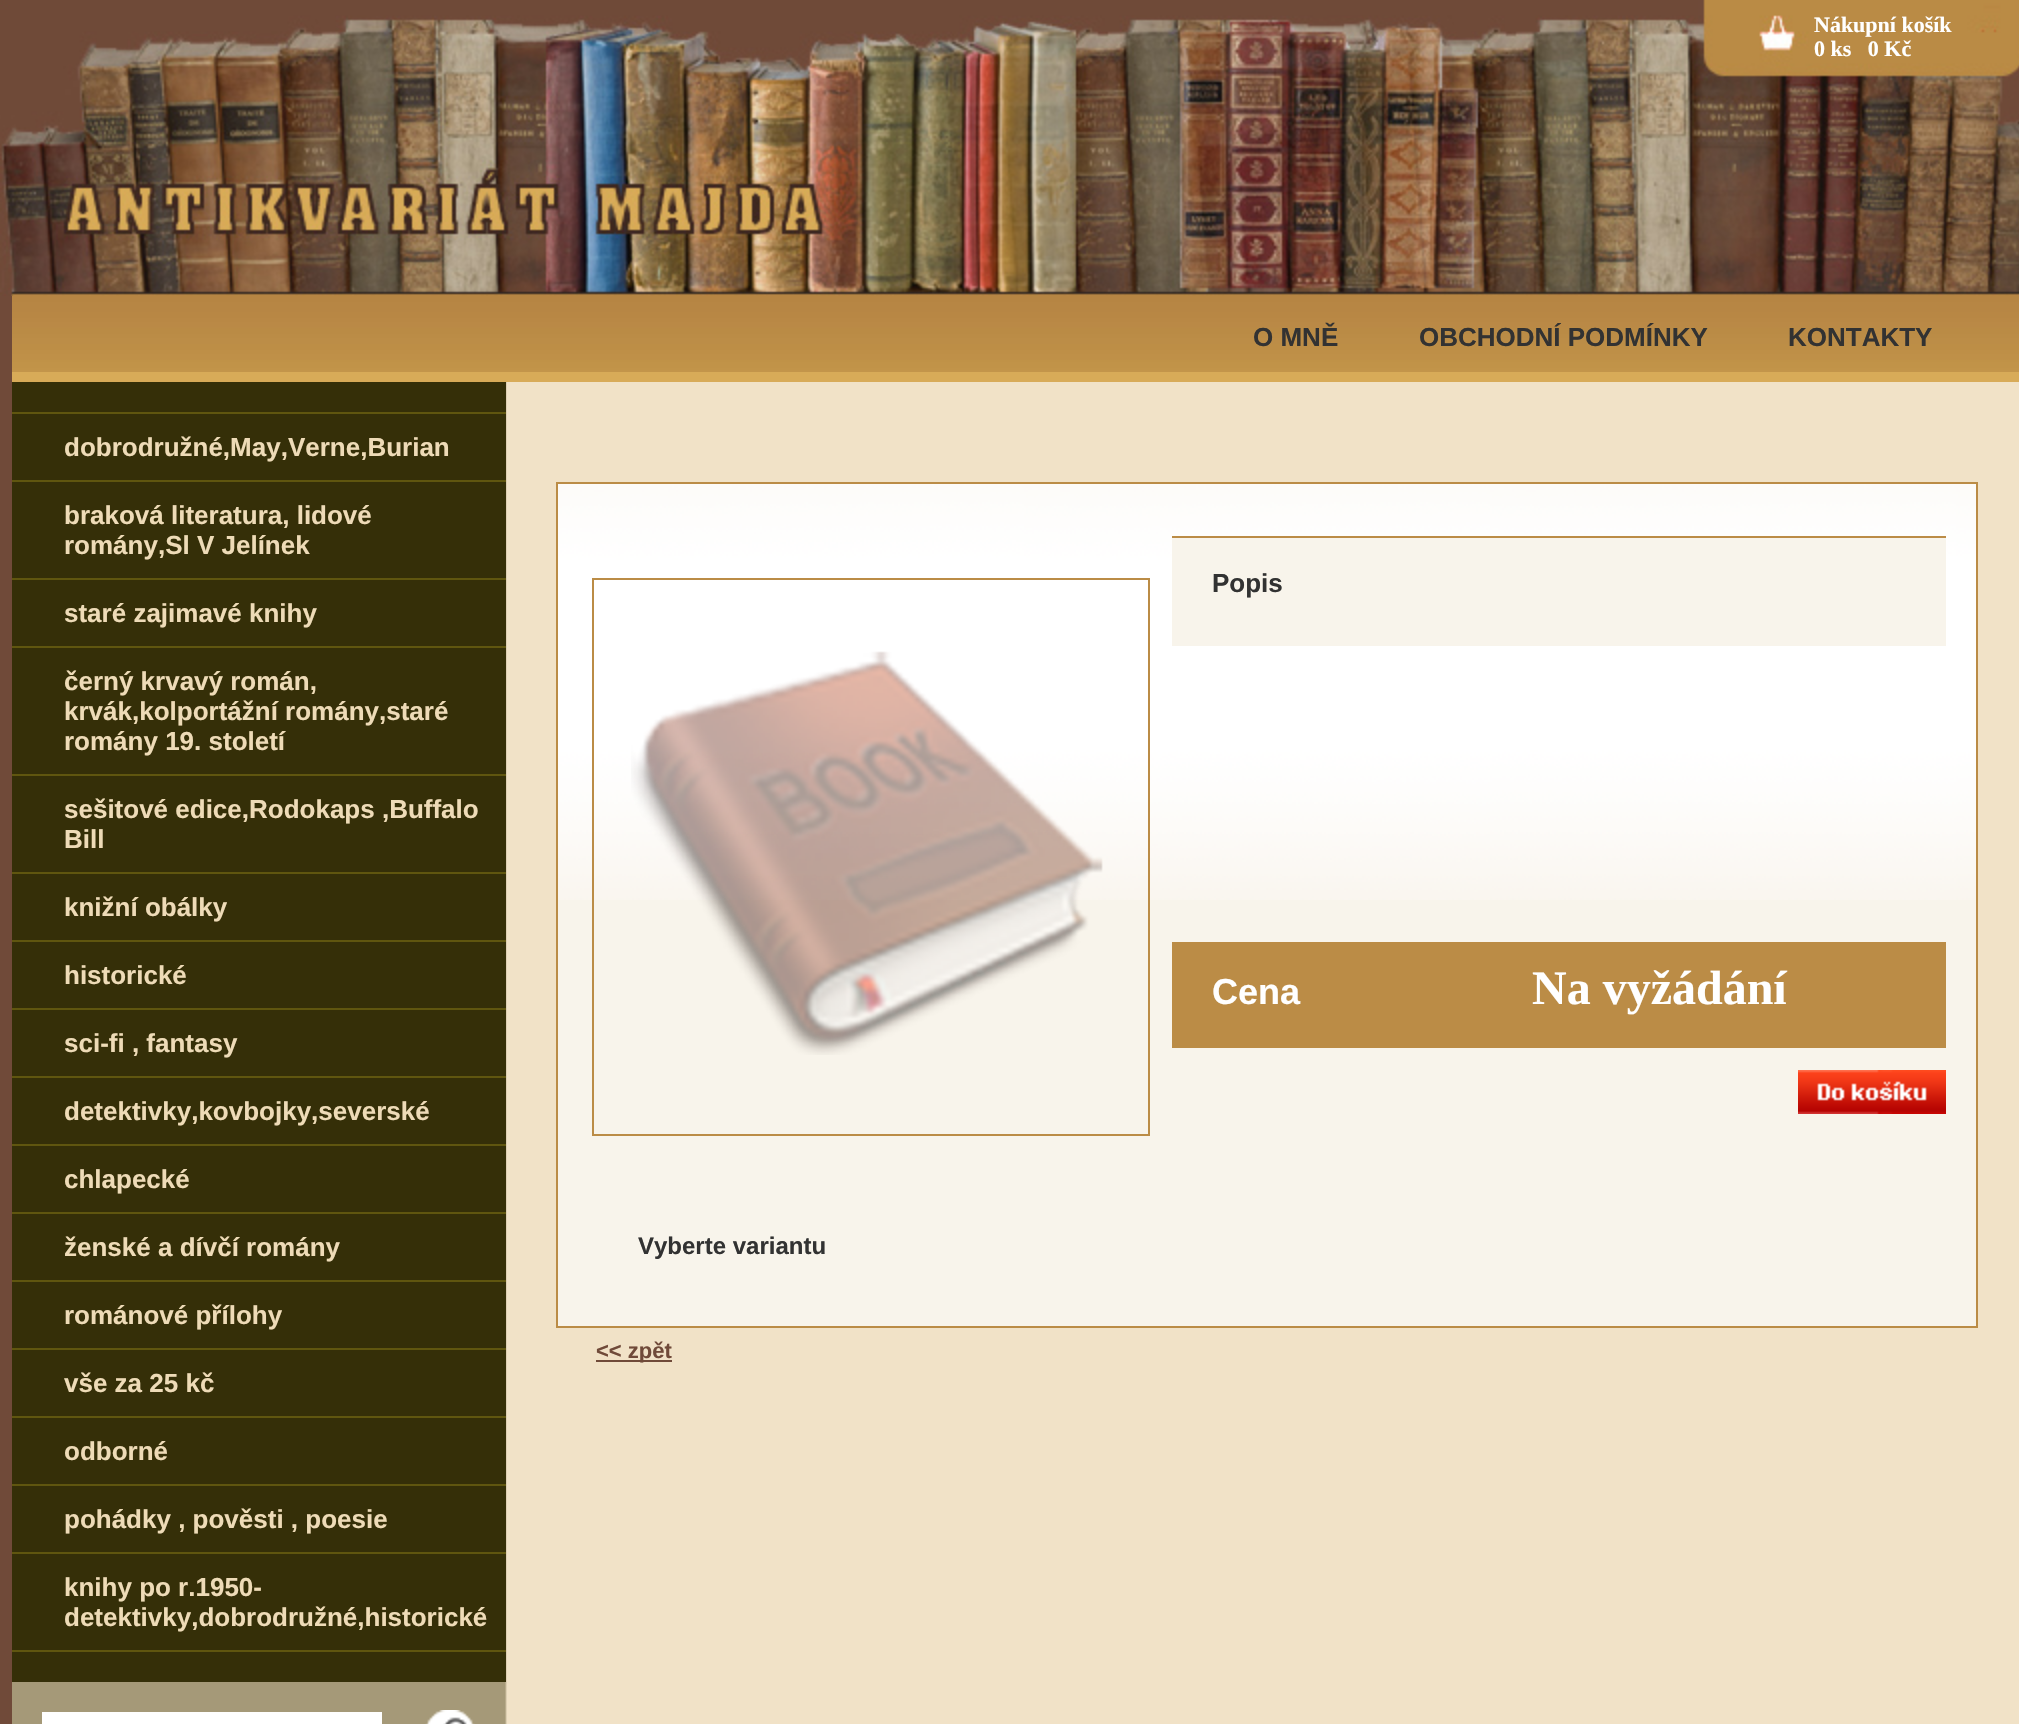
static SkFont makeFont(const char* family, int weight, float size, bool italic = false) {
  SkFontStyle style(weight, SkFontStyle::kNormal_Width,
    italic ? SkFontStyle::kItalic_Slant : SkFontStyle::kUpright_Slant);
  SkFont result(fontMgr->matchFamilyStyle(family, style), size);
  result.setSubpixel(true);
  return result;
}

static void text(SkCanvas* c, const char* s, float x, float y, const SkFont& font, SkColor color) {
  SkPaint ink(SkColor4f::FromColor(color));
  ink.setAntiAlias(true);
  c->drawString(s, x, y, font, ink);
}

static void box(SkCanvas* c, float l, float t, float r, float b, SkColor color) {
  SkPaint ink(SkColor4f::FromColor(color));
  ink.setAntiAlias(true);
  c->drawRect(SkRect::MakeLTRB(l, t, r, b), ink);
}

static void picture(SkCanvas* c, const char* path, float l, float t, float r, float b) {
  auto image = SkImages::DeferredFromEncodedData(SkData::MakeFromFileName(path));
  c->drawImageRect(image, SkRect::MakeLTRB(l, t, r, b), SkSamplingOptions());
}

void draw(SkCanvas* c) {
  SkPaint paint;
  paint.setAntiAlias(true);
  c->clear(0xff704a39);
  picture(c, "img_01.png", 0, 0, 2019, 296);
  SkFont face1 = makeFont("Liberation Serif", 700, 22);
  text(c, "Nákupní košík", 1814, 32, face1, 0xffffffff);
  text(c, "0 ks   0 Kč", 1814, 56, face1, 0xffffffff);
  picture(c, "img_02.png", 12, 296, 2019, 372);
  box(c, 12, 372, 2019, 382, 0xffd8ab58);
  SkFont face2 = makeFont("Liberation Sans", 700, 26);
  text(c, "O MNĚ", 1253, 346, face2, 0xff323232);
  text(c, "OBCHODNÍ PODMÍNKY", 1419, 346, face2, 0xff323232);
  text(c, "KONTAKTY", 1788, 346, face2, 0xff323232);
  box(c, 505, 382, 2019, 1724, 0xfff1e2c7);
  picture(c, "img_03.png", 12, 382, 507, 1724);
  box(c, 12, 382, 506, 412, 0xff352f08);
  box(c, 12, 412, 506, 414, 0xff60560f);
  box(c, 12, 414, 506, 480, 0xff352f08);
  box(c, 12, 480, 506, 482, 0xff60560f);
  text(c, "dobrodružné,May,Verne,Burian", 64, 456, face2, 0xffeedbb7);
  box(c, 12, 482, 506, 578, 0xff352f08);
  box(c, 12, 578, 506, 580, 0xff60560f);
  text(c, "braková literatura, lidové", 64, 524, face2, 0xffeedbb7);
  text(c, "romány,Sl V Jelínek", 64, 554, face2, 0xffeedbb7);
  box(c, 12, 580, 506, 646, 0xff352f08);
  box(c, 12, 646, 506, 648, 0xff60560f);
  text(c, "staré zajimavé knihy", 64, 622, face2, 0xffeedbb7);
  box(c, 12, 648, 506, 774, 0xff352f08);
  box(c, 12, 774, 506, 776, 0xff60560f);
  text(c, "černý krvavý román,", 64, 690, face2, 0xffeedbb7);
  text(c, "krvák,kolportážní romány,staré", 64, 720, face2, 0xffeedbb7);
  text(c, "romány 19. století", 64, 750, face2, 0xffeedbb7);
  box(c, 12, 776, 506, 872, 0xff352f08);
  box(c, 12, 872, 506, 874, 0xff60560f);
  text(c, "sešitové edice,Rodokaps ,Buffalo", 64, 818, face2, 0xffeedbb7);
  text(c, "Bill", 64, 848, face2, 0xffeedbb7);
  box(c, 12, 874, 506, 940, 0xff352f08);
  box(c, 12, 940, 506, 942, 0xff60560f);
  text(c, "knižní obálky", 64, 916, face2, 0xffeedbb7);
  box(c, 12, 942, 506, 1008, 0xff352f08);
  box(c, 12, 1008, 506, 1010, 0xff60560f);
  text(c, "historické", 64, 984, face2, 0xffeedbb7);
  box(c, 12, 1010, 506, 1076, 0xff352f08);
  box(c, 12, 1076, 506, 1078, 0xff60560f);
  text(c, "sci-fi , fantasy", 64, 1052, face2, 0xffeedbb7);
  box(c, 12, 1078, 506, 1144, 0xff352f08);
  box(c, 12, 1144, 506, 1146, 0xff60560f);
  text(c, "detektivky,kovbojky,severské", 64, 1120, face2, 0xffeedbb7);
  box(c, 12, 1146, 506, 1212, 0xff352f08);
  box(c, 12, 1212, 506, 1214, 0xff60560f);
  text(c, "chlapecké", 64, 1188, face2, 0xffeedbb7);
  box(c, 12, 1214, 506, 1280, 0xff352f08);
  box(c, 12, 1280, 506, 1282, 0xff60560f);
  text(c, "ženské a dívčí romány", 64, 1256, face2, 0xffeedbb7);
  box(c, 12, 1282, 506, 1348, 0xff352f08);
  box(c, 12, 1348, 506, 1350, 0xff60560f);
  text(c, "románové přílohy", 64, 1324, face2, 0xffeedbb7);
  box(c, 12, 1350, 506, 1416, 0xff352f08);
  box(c, 12, 1416, 506, 1418, 0xff60560f);
  text(c, "vše za 25 kč", 64, 1392, face2, 0xffeedbb7);
  box(c, 12, 1418, 506, 1484, 0xff352f08);
  box(c, 12, 1484, 506, 1486, 0xff60560f);
  text(c, "odborné", 64, 1460, face2, 0xffeedbb7);
  box(c, 12, 1486, 506, 1552, 0xff352f08);
  box(c, 12, 1552, 506, 1554, 0xff60560f);
  text(c, "pohádky , pověsti , poesie", 64, 1528, face2, 0xffeedbb7);
  box(c, 12, 1554, 506, 1650, 0xff352f08);
  box(c, 12, 1650, 506, 1652, 0xff60560f);
  text(c, "knihy po r.1950-", 64, 1596, face2, 0xffeedbb7);
  text(c, "detektivky,dobrodružné,historické", 64, 1626, face2, 0xffeedbb7);
  box(c, 12, 1652, 506, 1682, 0xff352f08);
  box(c, 42, 1712, 382, 1724, 0xffffffff);
  picture(c, "img_04.png", 425, 1710, 475, 1724);
  box(c, 558, 900, 1976, 1326, 0xfff8f4eb);
  paint.setStyle(SkPaint::kStroke_Style);
  paint.setStrokeWidth(2);
  paint.setColor(0xffbb8c46);
  c->drawRect(SkRect::MakeLTRB(557, 483, 1977, 1327), paint);
  picture(c, "img_05.png", 558, 484, 1976, 900);
  c->drawRect(SkRect::MakeLTRB(593, 579, 1149, 1135), paint);
  picture(c, "img_06.png", 631, 651, 1103, 1055);
  box(c, 1172, 538, 1946, 646, 0xfff8f4eb);
  box(c, 1172, 536, 1946, 538, 0xffbb8c46);
  text(c, "Popis", 1212, 592, face2, 0xff323232);
  box(c, 1172, 942, 1946, 1048, 0xffbb8c46);
  SkFont face3 = makeFont("Liberation Sans", 700, 36);
  text(c, "Cena", 1212, 1004, face3, 0xffffffff);
  SkFont face4 = makeFont("Liberation Serif", 700, 48);
  text(c, "Na vyžádání", 1532, 1004, face4, 0xffffffff);
  picture(c, "img_07.png", 1798, 1070, 1946, 1114);
  SkFont face5 = makeFont("Liberation Sans", 700, 24);
  text(c, "Vyberte variantu", 638, 1254, face5, 0xff323232);
  box(c, 596, 1360, 672, 1362, 0xff704a39);
  SkFont face6 = makeFont("Liberation Sans", 700, 22);
  text(c, "<< zpět", 596, 1358, face6, 0xff704a39);
}
